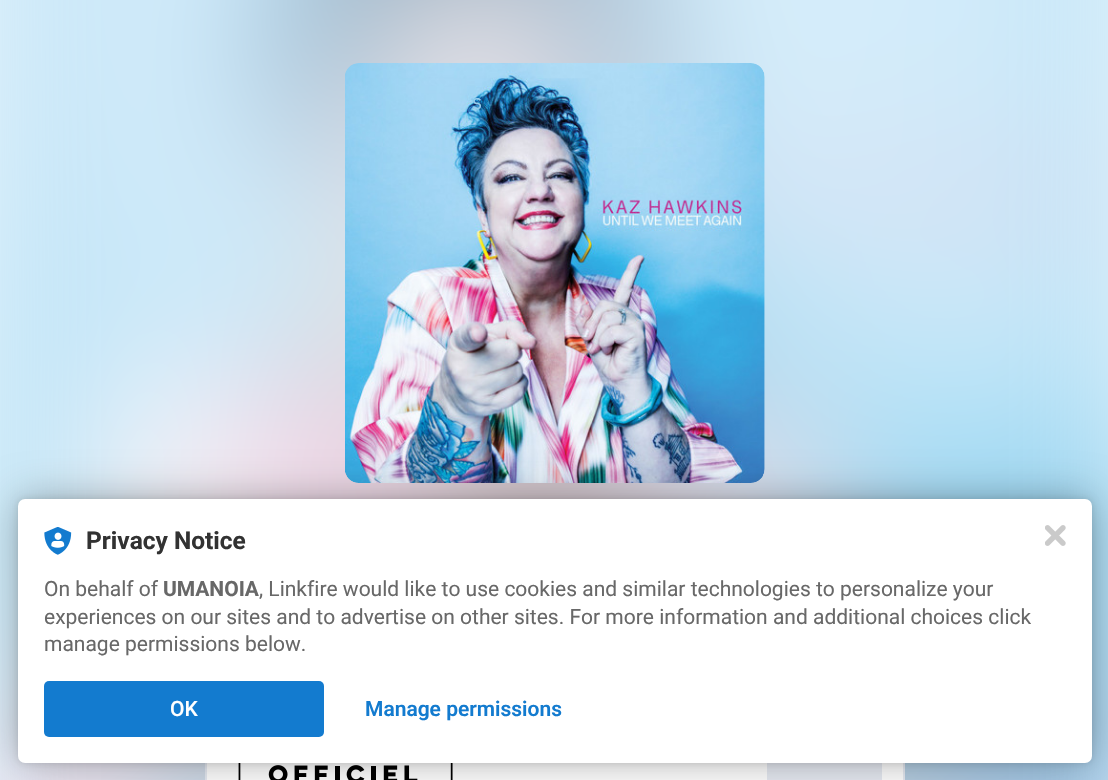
static SkFont makeFont(const char* family, int weight, float size, bool italic = false) {
  SkFontStyle style(weight, SkFontStyle::kNormal_Width,
    italic ? SkFontStyle::kItalic_Slant : SkFontStyle::kUpright_Slant);
  SkFont result(fontMgr->matchFamilyStyle(family, style), size);
  result.setSubpixel(true);
  return result;
}

static void text(SkCanvas* c, const char* s, float x, float y, const SkFont& font, SkColor color) {
  SkPaint ink(SkColor4f::FromColor(color));
  ink.setAntiAlias(true);
  c->drawString(s, x, y, font, ink);
}

static void box(SkCanvas* c, float l, float t, float r, float b, SkColor color) {
  SkPaint ink(SkColor4f::FromColor(color));
  ink.setAntiAlias(true);
  c->drawRect(SkRect::MakeLTRB(l, t, r, b), ink);
}

static void roundBox(SkCanvas* c, float l, float t, float r, float b, float radius, SkColor color) {
  SkPaint ink(SkColor4f::FromColor(color));
  ink.setAntiAlias(true);
  c->drawRoundRect(SkRect::MakeLTRB(l, t, r, b), radius, radius, ink);
}

static void picture(SkCanvas* c, const char* path, float l, float t, float r, float b) {
  auto image = SkImages::DeferredFromEncodedData(SkData::MakeFromFileName(path));
  c->drawImageRect(image, SkRect::MakeLTRB(l, t, r, b), SkSamplingOptions());
}

void draw(SkCanvas* c) {
  SkPaint paint;
  paint.setAntiAlias(true);
  c->clear(0xffffffff);
  picture(c, "img_01.png", 0, 0, 1108, 780);
  picture(c, "img_02.png", 345, 63, 765, 483);
  SkFont face1 = makeFont("IBM Plex Sans", 400, 21);
  text(c, "s", 472, 109, face1, 0xff95cdee);
  paint.setStyle(SkPaint::kStroke_Style);
  paint.setStrokeWidth(2);
  paint.setColor(0xffe6eaf2);
  c->drawRect(SkRect::MakeLTRB(206, 694, 904, 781), paint);
  box(c, 207, 763, 903, 780, 0xffffffff);
  picture(c, "img_03.png", 238, 763, 453, 780);
  box(c, 767, 763, 882, 780, 0xffe6eaf2);
  paint.setStyle(SkPaint::kFill_Style);
  paint.setColor(0x1f000000);
  paint.setMaskFilter(SkMaskFilter::MakeBlur(kNormal_SkBlurStyle, 3.5f));
  c->drawRoundRect(SkRect::MakeLTRB(18, 499, 1092, 763), 7, 7, paint);
  paint.setMaskFilter(nullptr);
  paint.setColor(0x4d000000);
  paint.setMaskFilter(SkMaskFilter::MakeBlur(kNormal_SkBlurStyle, 21));
  c->drawRoundRect(SkRect::MakeLTRB(18, 499, 1092, 763), 7, 7, paint);
  paint.setMaskFilter(nullptr);
  roundBox(c, 18, 499, 1092, 763, 7, 0xffffffff);
  picture(c, "img_04.png", 44, 527, 72, 555);
  SkFont face2 = makeFont("Roboto", 700, 24.5f);
  text(c, "Privacy Notice", 86, 549, face2, 0xff323232);
  SkFont face3 = makeFont("Roboto", 400, 21);
  text(c, "On behalf of", 44, 596, face3, 0xff686868);
  SkFont face4 = makeFont("Roboto", 700, 21);
  text(c, "UMANOIA", 163, 596, face4, 0xff686868);
  text(c, ", Linkfire would like to use cookies and similar technologies to personalize your", 259, 596, face3, 0xff686868);
  text(c, "experiences on our sites and to advertise on other sites. For more information and additional choices click", 44, 624, face3, 0xff686868);
  text(c, "manage permissions below.", 44, 651, face3, 0xff686868);
  roundBox(c, 44, 681, 324, 737, 5, 0xff137bcf);
  SkFont face5 = makeFont("Roboto", 500, 21);
  text(c, "OK", 170, 716, face5, 0xffffffff);
  SkFont face6 = makeFont("Roboto", 600, 21);
  text(c, "Manage permissions", 365, 716, face6, 0xff137bcf);
  picture(c, "img_05.png", 1045, 525, 1066, 546);
}
